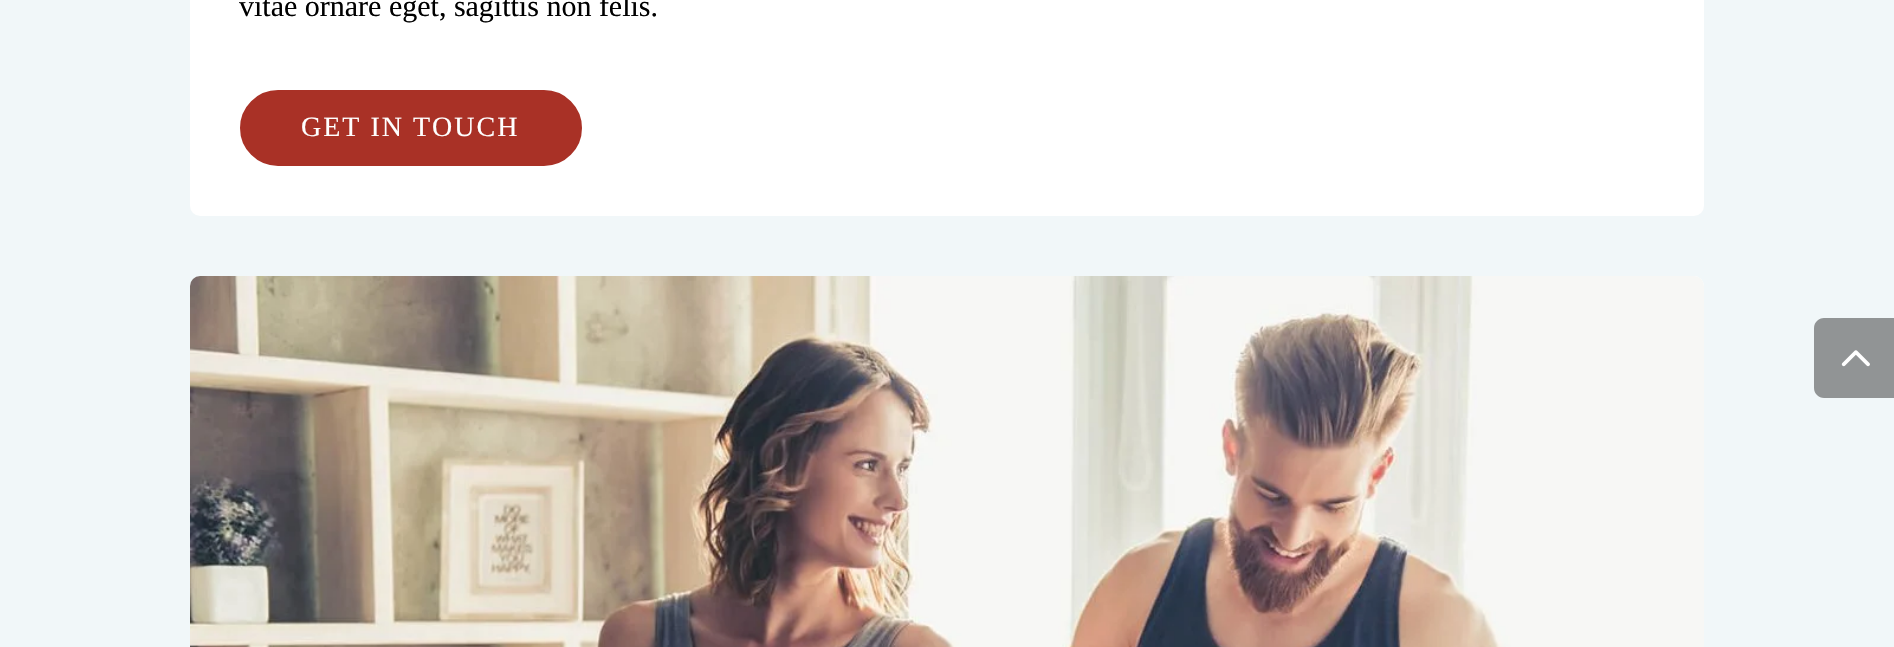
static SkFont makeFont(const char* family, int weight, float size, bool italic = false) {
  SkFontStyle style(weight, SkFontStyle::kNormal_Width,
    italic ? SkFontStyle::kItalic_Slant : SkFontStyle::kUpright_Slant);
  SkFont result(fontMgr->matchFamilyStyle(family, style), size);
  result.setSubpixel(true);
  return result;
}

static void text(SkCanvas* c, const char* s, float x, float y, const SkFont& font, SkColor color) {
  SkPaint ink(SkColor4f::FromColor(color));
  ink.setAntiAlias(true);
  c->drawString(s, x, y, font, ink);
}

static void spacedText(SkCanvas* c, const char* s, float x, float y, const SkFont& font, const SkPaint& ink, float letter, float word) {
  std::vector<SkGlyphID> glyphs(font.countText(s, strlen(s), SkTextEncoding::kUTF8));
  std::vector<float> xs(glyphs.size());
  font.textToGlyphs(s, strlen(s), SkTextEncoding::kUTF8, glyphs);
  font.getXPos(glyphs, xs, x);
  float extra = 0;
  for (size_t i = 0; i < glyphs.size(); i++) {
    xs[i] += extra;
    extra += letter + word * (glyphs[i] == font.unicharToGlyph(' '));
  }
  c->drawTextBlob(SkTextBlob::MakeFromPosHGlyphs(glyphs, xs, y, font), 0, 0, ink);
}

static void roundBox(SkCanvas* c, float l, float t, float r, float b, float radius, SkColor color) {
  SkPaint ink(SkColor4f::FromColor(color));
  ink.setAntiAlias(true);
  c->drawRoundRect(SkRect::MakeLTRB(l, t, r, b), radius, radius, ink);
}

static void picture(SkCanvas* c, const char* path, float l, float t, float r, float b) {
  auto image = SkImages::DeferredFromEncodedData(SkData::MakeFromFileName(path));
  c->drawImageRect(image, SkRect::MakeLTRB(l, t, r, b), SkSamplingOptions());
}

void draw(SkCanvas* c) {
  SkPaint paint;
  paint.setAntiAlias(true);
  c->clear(0xfff1f7f9);
  roundBox(c, 190, -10, 1704, 216, 10, 0xffffffff);
  SkFont face1 = makeFont("Liberation Serif", 400, 30);
  text(c, "vitae ornare eget, sagittis non felis.", 239, 16, face1, 0xff000000);
  paint.setColor(0xffa93126);
  c->drawRoundRect(SkRect::MakeLTRB(241, 91, 581, 165), 37, 37, paint);
  paint.setStyle(SkPaint::kStroke_Style);
  paint.setStrokeWidth(2);
  c->drawRoundRect(SkRect::MakeLTRB(241, 91, 581, 165), 37, 37, paint);
  SkFont face2 = makeFont("Liberation Serif", 400, 28);
  paint.setStyle(SkPaint::kFill_Style);
  paint.setColor(0xffffffff);
  spacedText(c, "GET IN TOUCH", 301, 136, face2, paint, 2, 0);
  roundBox(c, 190, 276, 1704, 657, 10, 0xffffffff);
  picture(c, "img_01.png", 190, 276, 1704, 647);
  paint.setColor(0xff919495);
  c->drawPath(SkPathBuilder().moveTo(1824, 318).lineTo(1894, 318).lineTo(1894, 398).lineTo(1824, 398).cubicTo(1818.5f, 398, 1814, 393.5f, 1814, 388).lineTo(1814, 328).cubicTo(1814, 322.5f, 1818.5f, 318, 1824, 318).close().detach(), paint);
  picture(c, "img_02.png", 1841, 350, 1870, 367);
}
